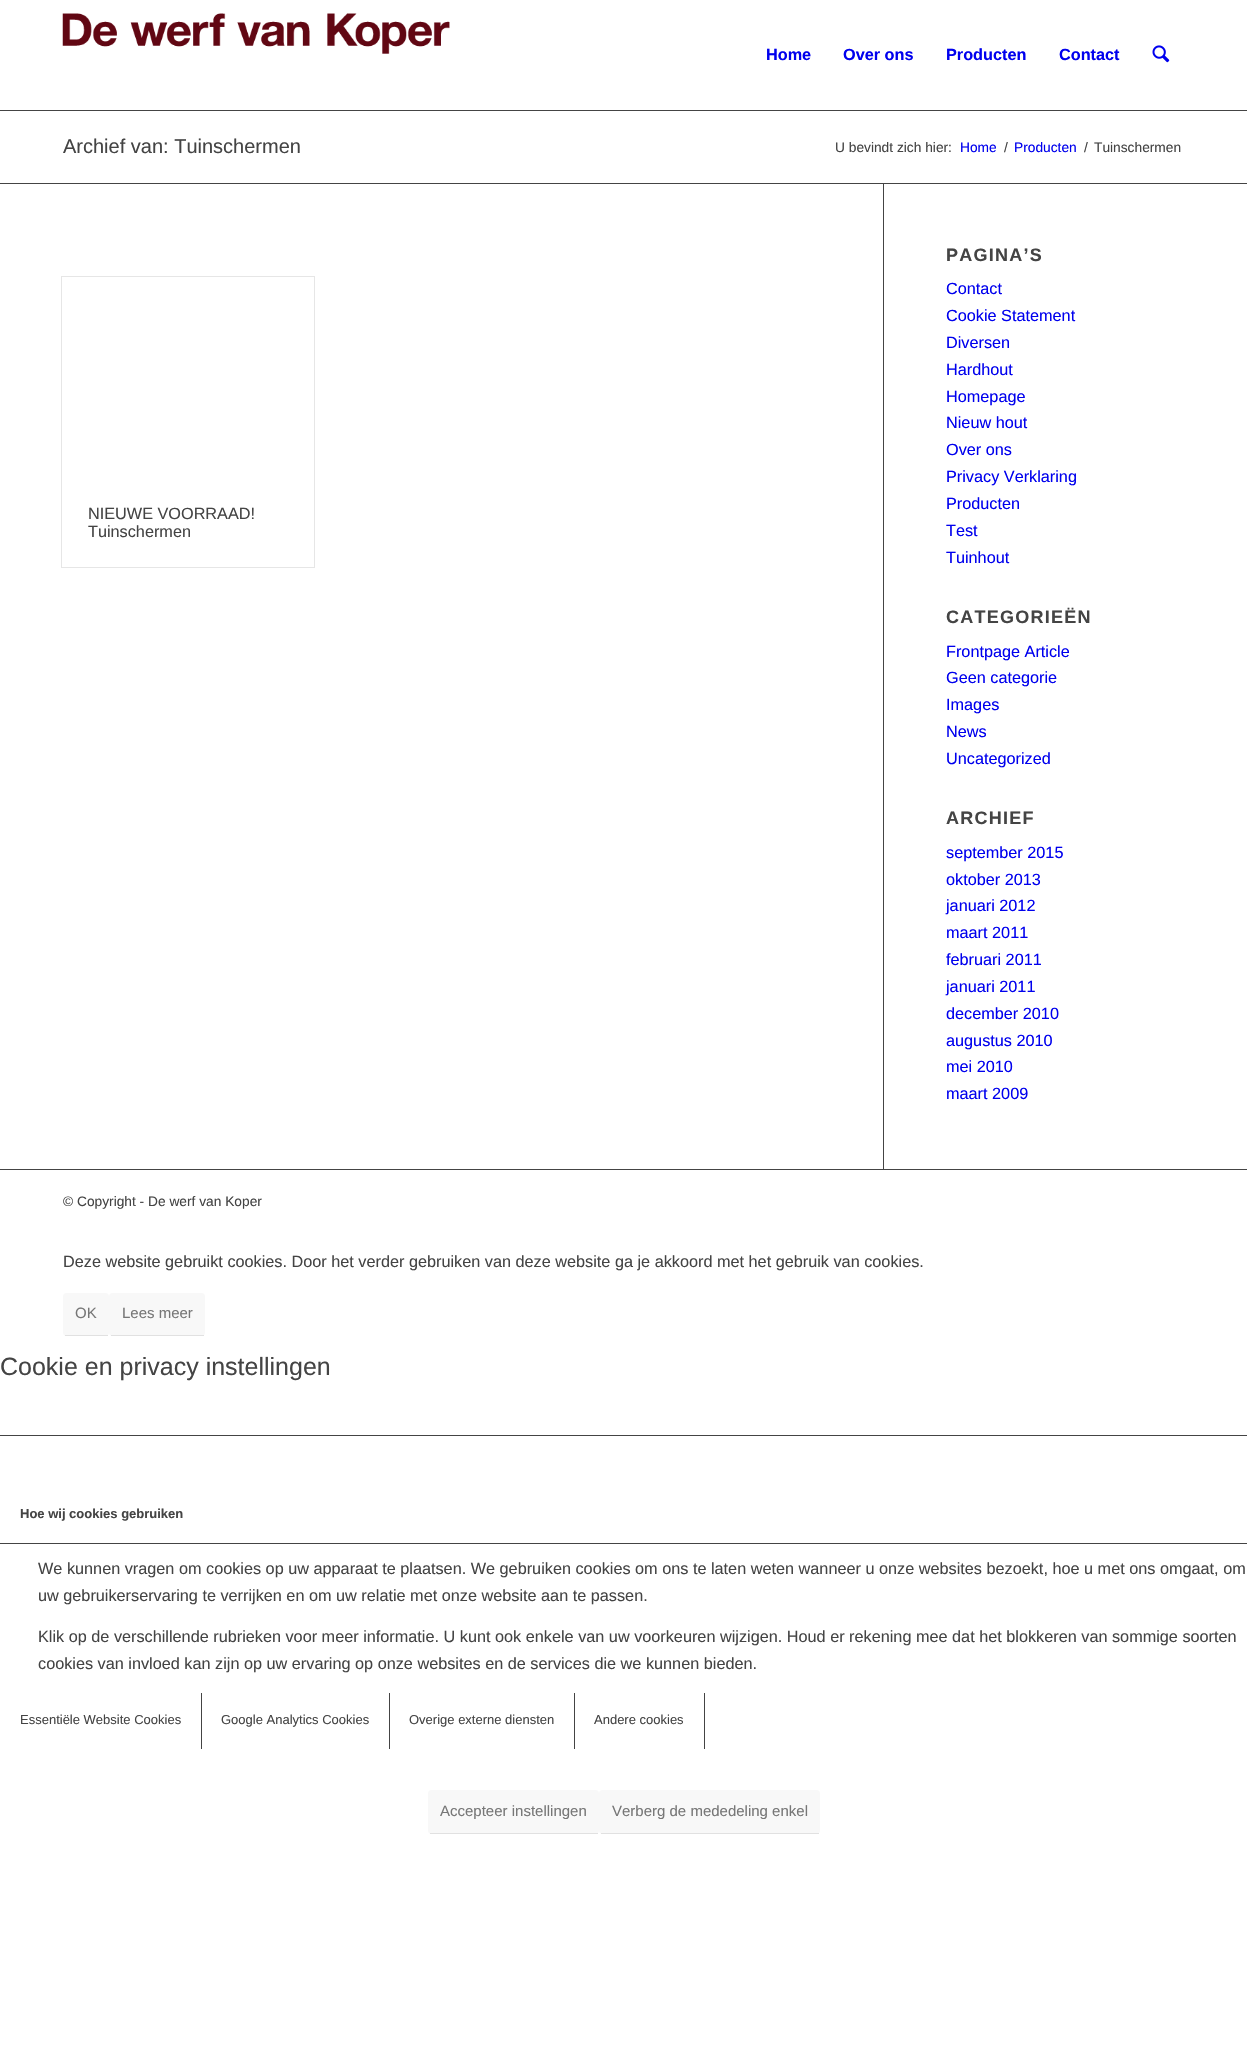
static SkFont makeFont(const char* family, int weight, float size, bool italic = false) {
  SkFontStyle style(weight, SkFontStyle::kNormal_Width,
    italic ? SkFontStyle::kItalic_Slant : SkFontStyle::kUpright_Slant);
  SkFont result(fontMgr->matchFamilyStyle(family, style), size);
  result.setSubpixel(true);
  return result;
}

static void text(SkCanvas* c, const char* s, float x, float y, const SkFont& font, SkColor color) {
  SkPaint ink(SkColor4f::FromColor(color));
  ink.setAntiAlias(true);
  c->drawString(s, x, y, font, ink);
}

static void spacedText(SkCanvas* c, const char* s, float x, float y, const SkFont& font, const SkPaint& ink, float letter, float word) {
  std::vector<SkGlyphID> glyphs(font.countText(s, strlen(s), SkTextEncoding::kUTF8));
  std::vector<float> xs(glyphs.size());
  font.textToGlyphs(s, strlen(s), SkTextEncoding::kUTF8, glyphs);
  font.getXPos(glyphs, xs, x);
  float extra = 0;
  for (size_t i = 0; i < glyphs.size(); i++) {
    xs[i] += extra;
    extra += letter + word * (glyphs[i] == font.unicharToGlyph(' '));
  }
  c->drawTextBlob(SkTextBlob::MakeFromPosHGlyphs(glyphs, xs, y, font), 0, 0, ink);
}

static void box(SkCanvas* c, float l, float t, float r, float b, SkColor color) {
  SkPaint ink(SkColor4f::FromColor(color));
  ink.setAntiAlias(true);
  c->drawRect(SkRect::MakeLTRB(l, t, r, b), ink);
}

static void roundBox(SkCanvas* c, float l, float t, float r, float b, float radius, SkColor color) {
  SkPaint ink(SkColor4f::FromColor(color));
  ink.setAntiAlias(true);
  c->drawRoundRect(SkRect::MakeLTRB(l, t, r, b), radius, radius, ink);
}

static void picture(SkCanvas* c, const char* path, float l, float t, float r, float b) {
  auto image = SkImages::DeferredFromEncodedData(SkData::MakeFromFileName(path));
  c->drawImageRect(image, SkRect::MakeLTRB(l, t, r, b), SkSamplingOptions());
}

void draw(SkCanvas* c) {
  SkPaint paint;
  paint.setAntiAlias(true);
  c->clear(0xffffffff);
  box(c, 0, 110, 1247, 111, 0xff444444);
  picture(c, "img_01.png", 62, 13, 450, 54);
  SkFont face1 = makeFont("Liberation Sans", 700, 16.25f);
  text(c, "Home", 766, 60, face1, 0xff0000ee);
  text(c, "Over ons", 843, 60, face1, 0xff0000ee);
  text(c, "Producten", 946, 60, face1, 0xff0000ee);
  text(c, "Contact", 1059, 60, face1, 0xff0000ee);
  picture(c, "img_02.png", 1152, 45, 1170, 63);
  SkFont face2 = makeFont("Liberation Sans", 400, 20);
  text(c, "Archief van: Tuinschermen", 63, 153, face2, 0xff444444);
  SkFont face3 = makeFont("Liberation Sans", 400, 13.75f);
  text(c, "U bevindt zich hier:", 835, 152, face3, 0xff444444);
  text(c, "Home", 960, 152, face3, 0xff0000ee);
  text(c, "/", 1004, 152, face3, 0xff444444);
  text(c, "Producten", 1014, 152, face3, 0xff0000ee);
  text(c, "/", 1084, 152, face3, 0xff444444);
  text(c, "Tuinschermen", 1094, 152, face3, 0xff444444);
  box(c, 0, 183, 1247, 184, 0xff444444);
  paint.setStyle(SkPaint::kStroke_Style);
  paint.setStrokeWidth(1);
  paint.setColor(0xffe6e6e6);
  c->drawRect(SkRect::MakeLTRB(61.5f, 276.5f, 314.5f, 567.5f), paint);
  SkFont face4 = makeFont("Liberation Sans", 400, 16.25f);
  text(c, "NIEUWE VOORRAAD!", 88, 519, face4, 0xff444444);
  text(c, "Tuinschermen", 88, 537, face4, 0xff444444);
  box(c, 883, 184, 884, 1170, 0xff444444);
  SkFont face5 = makeFont("Liberation Sans", 700, 18);
  paint.setStyle(SkPaint::kFill_Style);
  paint.setColor(0xff444444);
  spacedText(c, "PAGINA’S", 946, 261, face5, paint, 1.25f, 0);
  text(c, "Contact", 946, 294, face4, 0xff0000ee);
  text(c, "Cookie Statement", 946, 321, face4, 0xff0000ee);
  text(c, "Diversen", 946, 348, face4, 0xff0000ee);
  text(c, "Hardhout", 946, 375, face4, 0xff0000ee);
  text(c, "Homepage", 946, 402, face4, 0xff0000ee);
  text(c, "Nieuw hout", 946, 428, face4, 0xff0000ee);
  text(c, "Over ons", 946, 455, face4, 0xff0000ee);
  text(c, "Privacy Verklaring", 946, 482, face4, 0xff0000ee);
  text(c, "Producten", 946, 509, face4, 0xff0000ee);
  text(c, "Test", 946, 536, face4, 0xff0000ee);
  text(c, "Tuinhout", 946, 563, face4, 0xff0000ee);
  spacedText(c, "CATEGORIEËN", 946, 623, face5, paint, 1.25f, 0);
  text(c, "Frontpage Article", 946, 657, face4, 0xff0000ee);
  text(c, "Geen categorie", 946, 683, face4, 0xff0000ee);
  text(c, "Images", 946, 710, face4, 0xff0000ee);
  text(c, "News", 946, 737, face4, 0xff0000ee);
  text(c, "Uncategorized", 946, 764, face4, 0xff0000ee);
  spacedText(c, "ARCHIEF", 946, 824, face5, paint, 1.25f, 0);
  text(c, "september 2015", 946, 858, face4, 0xff0000ee);
  text(c, "oktober 2013", 946, 885, face4, 0xff0000ee);
  text(c, "januari 2012", 946, 911, face4, 0xff0000ee);
  text(c, "maart 2011", 946, 938, face4, 0xff0000ee);
  text(c, "februari 2011", 946, 965, face4, 0xff0000ee);
  text(c, "januari 2011", 946, 992, face4, 0xff0000ee);
  text(c, "december 2010", 946, 1019, face4, 0xff0000ee);
  text(c, "augustus 2010", 946, 1046, face4, 0xff0000ee);
  text(c, "mei 2010", 946, 1072, face4, 0xff0000ee);
  text(c, "maart 2009", 946, 1099, face4, 0xff0000ee);
  box(c, 0, 1169, 1247, 1170, 0xff444444);
  text(c, "© Copyright - De werf van Koper", 63, 1206, face3, 0xff444444);
  text(c, "Deze website gebruikt cookies. Door het verder gebruiken van deze website ga je akkoord met het gebruik van cookies.", 63, 1267, face4, 0xff444444);
  roundBox(c, 63, 1293, 109, 1336, 4, 0xfff8f8f8);
  box(c, 65, 1335, 108, 1336, 0xffe1e1e1);
  SkFont face6 = makeFont("Liberation Sans", 400, 15);
  text(c, "OK", 75, 1318, face6, 0xff777777);
  roundBox(c, 109, 1293, 205, 1336, 4, 0xfff8f8f8);
  box(c, 111, 1335, 204, 1336, 0xffe1e1e1);
  text(c, "Lees meer", 122, 1318, face6, 0xff777777);
  SkFont face7 = makeFont("Liberation Sans", 400, 25);
  text(c, "Cookie en privacy instellingen", 0, 1375, face7, 0xff444444);
  box(c, 0, 1435, 1247, 1436, 0xff444444);
  box(c, 0, 1543, 1247, 1544, 0xff444444);
  SkFont face8 = makeFont("Liberation Sans", 700, 13);
  text(c, "Hoe wij cookies gebruiken", 20, 1518, face8, 0xff444444);
  text(c, "We kunnen vragen om cookies op uw apparaat te plaatsen. We gebruiken cookies om ons te laten weten wanneer u onze websites bezoekt, hoe u met ons omgaat, om", 38, 1574, face4, 0xff444444);
  text(c, "uw gebruikerservaring te verrijken en om uw relatie met onze website aan te passen.", 38, 1601, face4, 0xff444444);
  text(c, "Klik op de verschillende rubrieken voor meer informatie. U kunt ook enkele van uw voorkeuren wijzigen. Houd er rekening mee dat het blokkeren van sommige soorten", 38, 1642, face4, 0xff444444);
  text(c, "cookies van invloed kan zijn op uw ervaring op onze websites en de services die we kunnen bieden.", 38, 1669, face4, 0xff444444);
  box(c, 201, 1693, 202, 1749, 0xff444444);
  SkFont face9 = makeFont("Liberation Sans", 400, 13);
  text(c, "Essentiële Website Cookies", 20, 1724, face9, 0xff444444);
  box(c, 389, 1693, 390, 1749, 0xff444444);
  text(c, "Google Analytics Cookies", 221, 1724, face9, 0xff444444);
  box(c, 574, 1693, 575, 1749, 0xff444444);
  text(c, "Overige externe diensten", 409, 1724, face9, 0xff444444);
  box(c, 704, 1693, 705, 1749, 0xff444444);
  text(c, "Andere cookies", 594, 1724, face9, 0xff444444);
  roundBox(c, 428, 1790, 599, 1834, 4, 0xfff8f8f8);
  box(c, 430, 1833, 598, 1834, 0xffe1e1e1);
  text(c, "Accepteer instellingen", 440, 1816, face6, 0xff777777);
  roundBox(c, 599, 1790, 820, 1834, 4, 0xfff8f8f8);
  box(c, 601, 1833, 819, 1834, 0xffe1e1e1);
  text(c, "Verberg de mededeling enkel", 612, 1816, face6, 0xff777777);
}
